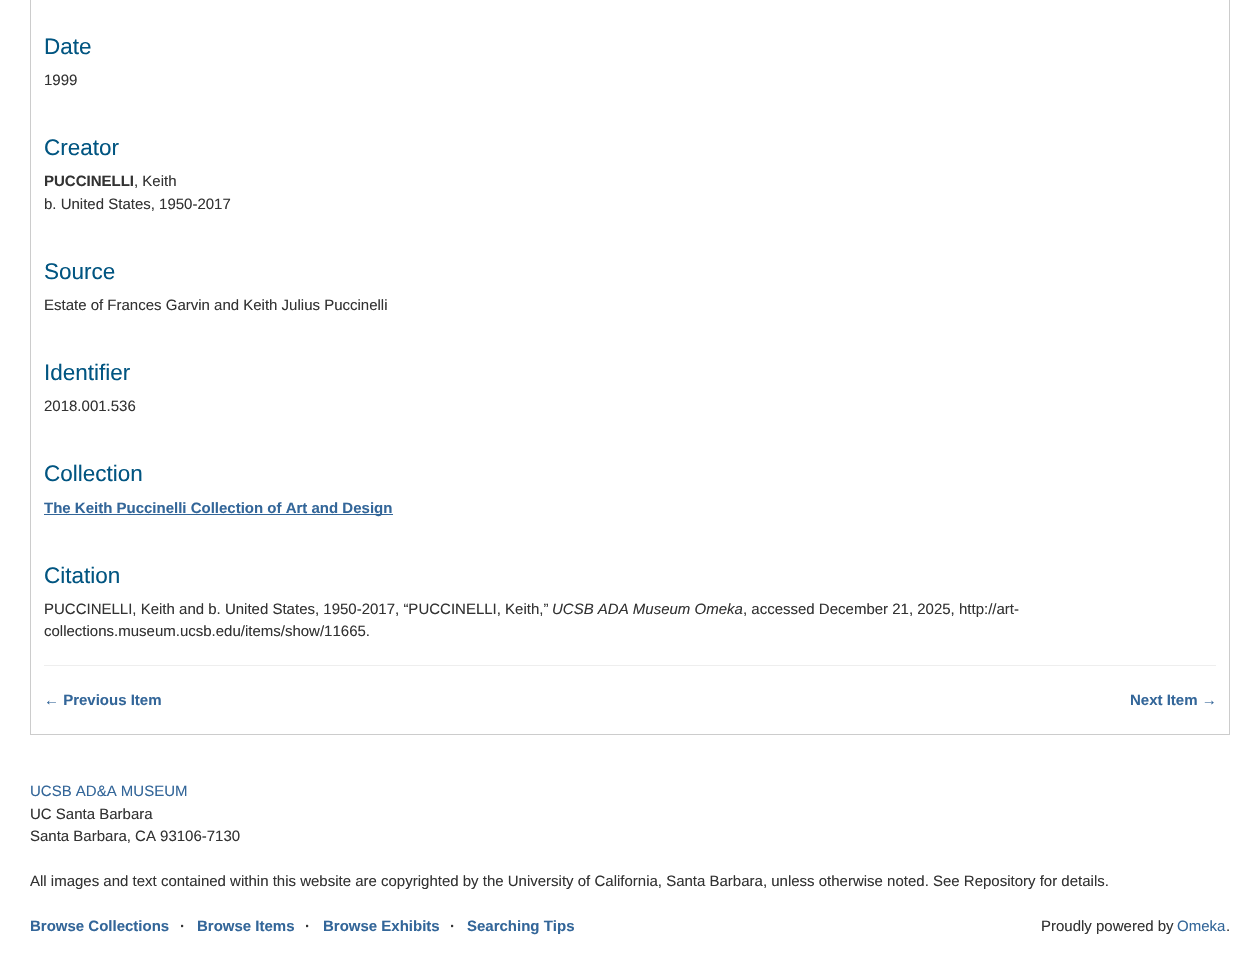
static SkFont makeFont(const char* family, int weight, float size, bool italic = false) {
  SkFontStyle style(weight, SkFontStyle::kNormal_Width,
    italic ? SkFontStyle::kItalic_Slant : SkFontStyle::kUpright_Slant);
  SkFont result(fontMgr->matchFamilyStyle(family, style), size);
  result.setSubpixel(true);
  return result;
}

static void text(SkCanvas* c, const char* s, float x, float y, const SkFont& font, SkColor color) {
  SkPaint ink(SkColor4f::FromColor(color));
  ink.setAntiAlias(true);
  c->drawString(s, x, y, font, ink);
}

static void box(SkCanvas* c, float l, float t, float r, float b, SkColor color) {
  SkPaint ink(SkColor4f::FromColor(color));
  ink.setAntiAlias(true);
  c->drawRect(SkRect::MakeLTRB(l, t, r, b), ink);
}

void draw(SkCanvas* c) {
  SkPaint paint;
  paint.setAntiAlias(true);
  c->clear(0xffffffff);
  paint.setStyle(SkPaint::kStroke_Style);
  paint.setStrokeWidth(1);
  paint.setColor(0xffcccccc);
  c->drawRect(SkRect::MakeLTRB(30.5f, -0.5f, 1229.5f, 734.5f), paint);
  SkFont face1 = makeFont("Liberation Sans", 400, 22.5f);
  text(c, "Date", 44, 54, face1, 0xff015581);
  SkFont face2 = makeFont("Liberation Sans", 400, 15);
  text(c, "1999", 44, 85, face2, 0xff333333);
  text(c, "Creator", 44, 155, face1, 0xff015581);
  SkFont face3 = makeFont("Liberation Sans", 700, 15);
  text(c, "PUCCINELLI", 44, 186, face3, 0xff333333);
  text(c, ", Keith", 134, 186, face2, 0xff333333);
  text(c, "b. United States, 1950-2017", 44, 209, face2, 0xff333333);
  text(c, "Source", 44, 279, face1, 0xff015581);
  text(c, "Estate of Frances Garvin and Keith Julius Puccinelli", 44, 310, face2, 0xff333333);
  text(c, "Identifier", 44, 380, face1, 0xff015581);
  text(c, "2018.001.536", 44, 411, face2, 0xff333333);
  text(c, "Collection", 44, 481, face1, 0xff015581);
  box(c, 44, 514, 393, 515, 0xff336699);
  text(c, "The Keith Puccinelli Collection of Art and Design", 44, 513, face3, 0xff336699);
  text(c, "Citation", 44, 583, face1, 0xff015581);
  text(c, "PUCCINELLI, Keith and b. United States, 1950-2017, “PUCCINELLI, Keith,”", 44, 614, face2, 0xff333333);
  SkFont face4 = makeFont("Liberation Sans", 400, 15, true);
  text(c, "UCSB ADA Museum Omeka", 552, 614, face4, 0xff333333);
  text(c, ", accessed December 21, 2025, http://art-", 743, 614, face2, 0xff333333);
  text(c, "collections.museum.ucsb.edu/items/show/11665.", 44, 636, face2, 0xff333333);
  box(c, 44, 665, 1216, 666, 0xffeeeeee);
  text(c, "← Previous Item", 44, 705, face3, 0xff336699);
  text(c, "Next Item →", 1130, 705, face3, 0xff336699);
  text(c, "UCSB AD&A MUSEUM", 30, 796, face2, 0xff336699);
  text(c, "UC Santa Barbara", 30, 819, face2, 0xff333333);
  text(c, "Santa Barbara, CA 93106-7130", 30, 841, face2, 0xff333333);
  text(c, "All images and text contained within this website are copyrighted by the University of California, Santa Barbara, unless otherwise noted. See Repository for details.", 30, 886, face2, 0xff333333);
  text(c, "Browse Collections", 30, 931, face3, 0xff336699);
  text(c, "·", 180, 931, face3, 0xff333333);
  text(c, "Browse Items", 197, 931, face3, 0xff336699);
  text(c, "·", 305, 931, face3, 0xff333333);
  text(c, "Browse Exhibits", 323, 931, face3, 0xff336699);
  text(c, "·", 450, 931, face3, 0xff333333);
  text(c, "Searching Tips", 467, 931, face3, 0xff336699);
  text(c, "Proudly powered by", 1041, 931, face2, 0xff333333);
  text(c, "Omeka", 1177, 931, face2, 0xff336699);
  text(c, ".", 1226, 931, face2, 0xff333333);
}
